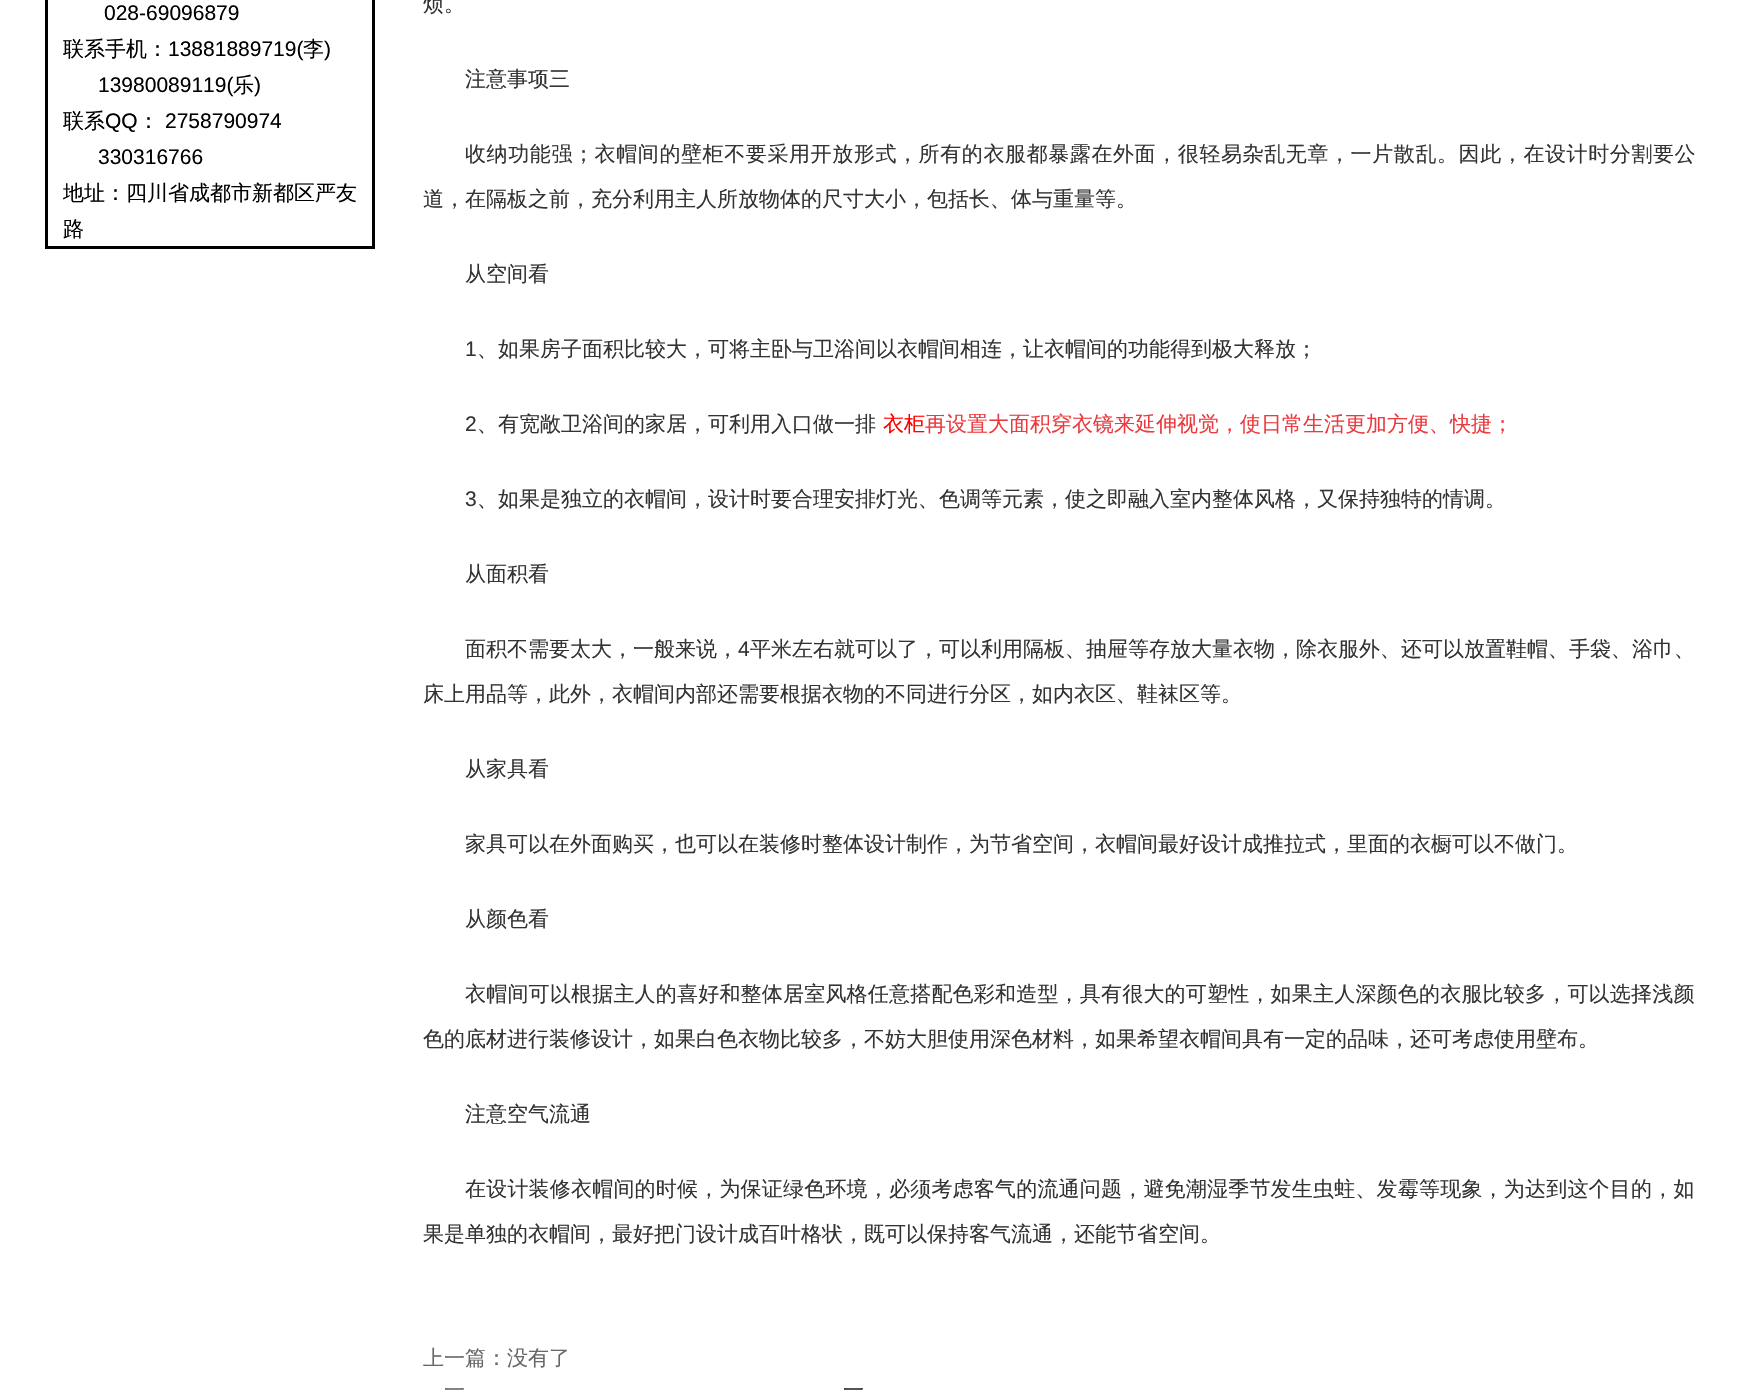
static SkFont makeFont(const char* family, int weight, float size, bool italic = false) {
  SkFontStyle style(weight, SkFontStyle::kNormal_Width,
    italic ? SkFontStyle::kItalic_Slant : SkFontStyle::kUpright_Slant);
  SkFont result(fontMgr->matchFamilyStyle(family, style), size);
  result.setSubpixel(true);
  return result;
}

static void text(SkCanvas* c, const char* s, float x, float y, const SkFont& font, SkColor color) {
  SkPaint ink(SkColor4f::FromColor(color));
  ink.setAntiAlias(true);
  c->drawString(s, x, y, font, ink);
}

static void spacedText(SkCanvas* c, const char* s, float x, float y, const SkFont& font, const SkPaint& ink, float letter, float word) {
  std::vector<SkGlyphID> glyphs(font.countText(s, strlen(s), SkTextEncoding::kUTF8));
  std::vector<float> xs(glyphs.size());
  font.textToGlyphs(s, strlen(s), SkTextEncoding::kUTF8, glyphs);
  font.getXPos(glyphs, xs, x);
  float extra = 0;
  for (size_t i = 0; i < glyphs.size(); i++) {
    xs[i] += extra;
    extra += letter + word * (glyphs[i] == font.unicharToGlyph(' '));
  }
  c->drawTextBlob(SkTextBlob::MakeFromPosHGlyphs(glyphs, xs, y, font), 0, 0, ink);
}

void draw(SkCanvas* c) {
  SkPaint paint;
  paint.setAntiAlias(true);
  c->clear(0xffffffff);
  paint.setStyle(SkPaint::kStroke_Style);
  paint.setStrokeWidth(3);
  paint.setColor(0xff000000);
  c->drawRect(SkRect::MakeLTRB(46.5f, -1.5f, 373.5f, 247.5f), paint);
  SkFont face1 = makeFont("Liberation Sans", 400, 21);
  text(c, "028-69096879", 104, 20, face1, 0xff000000);
  SkFont face2 = makeFont("WenQuanYi Zen Hei", 500, 21);
  text(c, "联系手机：", 63, 56, face2, 0xff000000);
  text(c, "13881889719(", 168, 56, face1, 0xff000000);
  text(c, "李", 303, 56, face2, 0xff000000);
  text(c, ")", 324, 56, face1, 0xff000000);
  text(c, "13980089119(", 98, 92, face1, 0xff000000);
  text(c, "乐", 233, 92, face2, 0xff000000);
  text(c, ")", 254, 92, face1, 0xff000000);
  text(c, "联系", 63, 128, face2, 0xff000000);
  text(c, "QQ", 105, 128, face1, 0xff000000);
  text(c, "：", 138, 128, face2, 0xff000000);
  text(c, "2758790974", 165, 128, face1, 0xff000000);
  text(c, "330316766", 98, 164, face1, 0xff000000);
  text(c, "地址：四川省成都市新都区严友", 63, 200, face2, 0xff000000);
  text(c, "路", 63, 236, face2, 0xff000000);
  text(c, "烦。", 423, 11, face2, 0xff333333);
  text(c, "注意事项三", 465, 86, face2, 0xff333333);
  paint.setStyle(SkPaint::kFill_Style);
  paint.setColor(0xff333333);
  spacedText(c, "收纳功能强；衣帽间的壁柜不要采用开放形式，所有的衣服都暴露在外面，很轻易杂乱无章，一片散乱。因此，在设计时分割要公", 465, 161, face2, paint, 0.6f, 0);
  text(c, "道，在隔板之前，充分利用主人所放物体的尺寸大小，包括长、体与重量等。", 423, 206, face2, 0xff333333);
  text(c, "从空间看", 465, 281, face2, 0xff333333);
  text(c, "1", 465, 356, face1, 0xff333333);
  text(c, "、如果房子面积比较大，可将主卧与卫浴间以衣帽间相连，让衣帽间的功能得到极大释放；", 477, 356, face2, 0xff333333);
  text(c, "2", 465, 431, face1, 0xff333333);
  text(c, "、有宽敞卫浴间的家居，可利用入口做一排", 477, 431, face2, 0xff333333);
  text(c, "衣柜", 883, 431, face2, 0xffff0000);
  text(c, "再设置大面积穿衣镜来延伸视觉，使日常生活更加方便、快捷；", 925, 431, face2, 0xffec3a3e);
  text(c, "3", 465, 506, face1, 0xff333333);
  text(c, "、如果是独立的衣帽间，设计时要合理安排灯光、色调等元素，使之即融入室内整体风格，又保持独特的情调。", 477, 506, face2, 0xff333333);
  text(c, "从面积看", 465, 581, face2, 0xff333333);
  text(c, "面积不需要太大，一般来说，", 465, 656, face2, 0xff333333);
  text(c, "4", 738, 656, face1, 0xff333333);
  text(c, "平米左右就可以了，可以利用隔板、抽屉等存放大量衣物，除衣服外、还可以放置鞋帽、手袋、浴巾、", 750, 656, face2, 0xff333333);
  text(c, "床上用品等，此外，衣帽间内部还需要根据衣物的不同进行分区，如内衣区、鞋袜区等。", 423, 701, face2, 0xff333333);
  text(c, "从家具看", 465, 776, face2, 0xff333333);
  text(c, "家具可以在外面购买，也可以在装修时整体设计制作，为节省空间，衣帽间最好设计成推拉式，里面的衣橱可以不做门。", 465, 851, face2, 0xff333333);
  text(c, "从颜色看", 465, 926, face2, 0xff333333);
  spacedText(c, "衣帽间可以根据主人的喜好和整体居室风格任意搭配色彩和造型，具有很大的可塑性，如果主人深颜色的衣服比较多，可以选择浅颜", 465, 1001, face2, paint, 0.2f, 0);
  text(c, "色的底材进行装修设计，如果白色衣物比较多，不妨大胆使用深色材料，如果希望衣帽间具有一定的品味，还可考虑使用壁布。", 423, 1046, face2, 0xff333333);
  text(c, "注意空气流通", 465, 1121, face2, 0xff333333);
  spacedText(c, "在设计装修衣帽间的时候，为保证绿色环境，必须考虑客气的流通问题，避免潮湿季节发生虫蛀、发霉等现象，为达到这个目的，如", 465, 1196, face2, paint, 0.2f, 0);
  text(c, "果是单独的衣帽间，最好把门设计成百叶格状，既可以保持客气流通，还能节省空间。", 423, 1241, face2, 0xff333333);
  text(c, "上一篇：没有了", 423, 1365, face2, 0xff686868);
  text(c, "一", 444, 1397, face2, 0xff686868);
  text(c, "一", 843, 1397, face2, 0xff333333);
}
